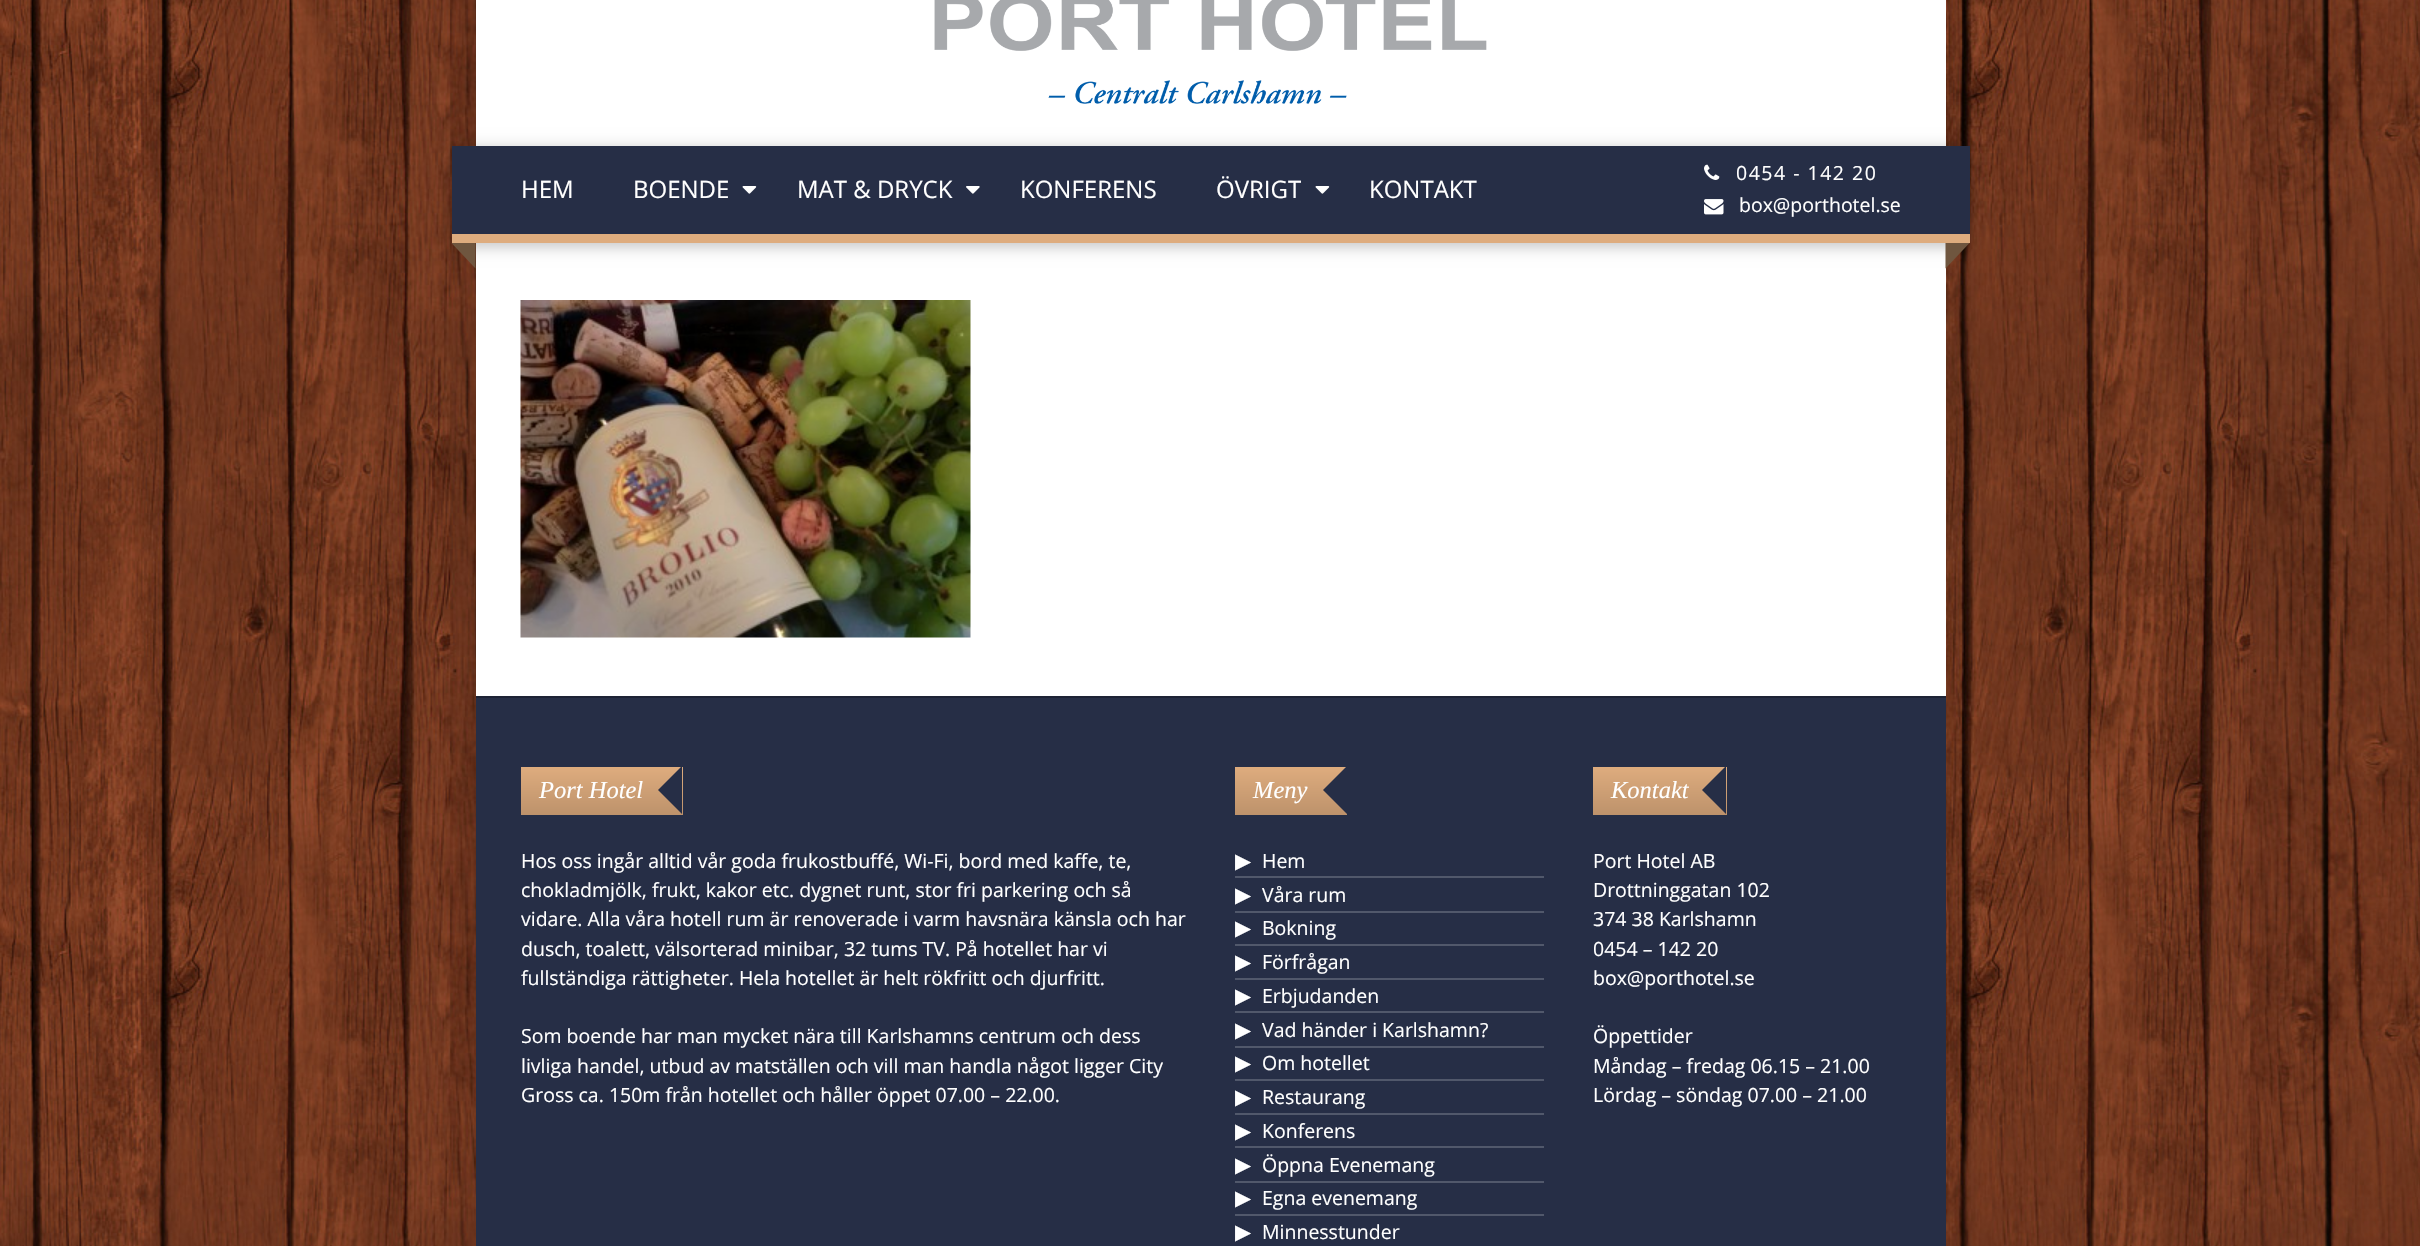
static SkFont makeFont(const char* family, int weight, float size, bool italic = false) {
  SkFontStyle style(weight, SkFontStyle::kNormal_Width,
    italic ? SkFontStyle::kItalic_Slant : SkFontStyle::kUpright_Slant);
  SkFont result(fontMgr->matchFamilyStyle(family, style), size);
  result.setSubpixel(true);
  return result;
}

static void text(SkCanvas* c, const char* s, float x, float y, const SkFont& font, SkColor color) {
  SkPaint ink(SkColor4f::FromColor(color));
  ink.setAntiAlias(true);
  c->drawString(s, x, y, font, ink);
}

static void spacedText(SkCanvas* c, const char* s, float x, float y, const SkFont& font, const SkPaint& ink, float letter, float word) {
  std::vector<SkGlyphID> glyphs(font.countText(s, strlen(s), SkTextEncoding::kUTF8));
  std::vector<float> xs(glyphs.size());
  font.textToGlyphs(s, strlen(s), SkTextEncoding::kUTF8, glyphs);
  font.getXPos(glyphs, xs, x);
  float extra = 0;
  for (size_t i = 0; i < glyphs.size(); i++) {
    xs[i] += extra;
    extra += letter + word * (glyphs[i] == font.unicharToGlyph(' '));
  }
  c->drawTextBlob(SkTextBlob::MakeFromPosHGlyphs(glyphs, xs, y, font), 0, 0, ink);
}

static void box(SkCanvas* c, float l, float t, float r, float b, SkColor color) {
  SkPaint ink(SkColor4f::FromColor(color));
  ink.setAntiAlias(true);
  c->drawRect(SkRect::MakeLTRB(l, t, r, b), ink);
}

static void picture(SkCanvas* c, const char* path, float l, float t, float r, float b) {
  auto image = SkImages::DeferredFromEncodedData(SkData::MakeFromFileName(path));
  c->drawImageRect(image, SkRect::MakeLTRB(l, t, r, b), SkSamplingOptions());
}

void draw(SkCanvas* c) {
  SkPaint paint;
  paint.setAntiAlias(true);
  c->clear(0xffffffff);
  picture(c, "img_01.png", 0, 0, 2420, 1246);
  paint.setColor(0x1a000000);
  paint.setMaskFilter(SkMaskFilter::MakeBlur(kNormal_SkBlurStyle, 7.5f));
  c->drawRect(SkRect::MakeLTRB(476, -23, 1946, 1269), paint);
  paint.setMaskFilter(nullptr);
  box(c, 476, 0, 1946, 696, 0xffffffff);
  picture(c, "img_02.png", 934, 0, 1487, 104);
  paint.setColor(0x40000000);
  paint.setMaskFilter(SkMaskFilter::MakeBlur(kNormal_SkBlurStyle, 7.5f));
  c->drawRect(SkRect::MakeLTRB(452, 149, 1970, 246), paint);
  paint.setMaskFilter(nullptr);
  box(c, 452, 146, 1970, 234, 0xff262e46);
  box(c, 452, 234, 1970, 243, 0xffdeac7e);
  SkFont face1 = makeFont("Open Sans", 400, 24);
  text(c, "HEM", 521, 198, face1, 0xffffffff);
  text(c, "BOENDE", 633, 198, face1, 0xffffffff);
  picture(c, "img_03.png", 742, 186, 757, 194);
  text(c, "MAT & DRYCK", 797, 198, face1, 0xffffffff);
  picture(c, "img_04.png", 966, 186, 980, 194);
  text(c, "KONFERENS", 1020, 198, face1, 0xffffffff);
  text(c, "ÖVRIGT", 1216, 198, face1, 0xffffffff);
  picture(c, "img_03.png", 1315, 186, 1330, 194);
  text(c, "KONTAKT", 1369, 198, face1, 0xffffffff);
  picture(c, "img_05.png", 1704, 164, 1720, 180);
  SkFont face2 = makeFont("Open Sans", 400, 19.5f);
  paint.setColor(0xffffffff);
  spacedText(c, "0454 - 142 20", 1736, 180, face2, paint, 1.5f, 0);
  picture(c, "img_06.png", 1704, 199, 1724, 215);
  text(c, "box@porthotel.se", 1739, 212, face2, 0xffffffff);
  paint.setColor(0xff6f563f);
  c->drawPath(SkPathBuilder().moveTo(451.5f, 243).lineTo(475.5f, 243).lineTo(475.5f, 268.5f).close().detach(), paint);
  c->drawPath(SkPathBuilder().moveTo(1945.5f, 243).lineTo(1969.5f, 243).lineTo(1945.5f, 268.5f).close().detach(), paint);
  picture(c, "img_07.png", 520, 300, 971, 638);
  box(c, 476, 698, 1946, 1246, 0xff262e46);
  box(c, 476, 696, 1946, 698, 0xff1d2335);
  {
    const SkColor colors[] = {0xffdeac7e, 0xffbd926b};
    const float stops[] = {0, 1};
    const SkPoint ends[] = {{602, 767}, {602, 815}};
    paint.setShader(SkGradientShader::MakeLinear(ends, colors, stops, 2, SkTileMode::kClamp));
    paint.setAlpha(255);
  }
  c->drawRect(SkRect::MakeLTRB(521, 767, 683, 815), paint);
  SkFont face3 = makeFont("Liberation Serif", 400, 24.5f, true);
  text(c, "Port Hotel", 539, 798, face3, 0xffffffff);
  paint.setShader(nullptr);
  paint.setColor(0xff262e46);
  c->drawPath(SkPathBuilder().moveTo(682, 766).lineTo(682, 814).lineTo(658, 790).close().detach(), paint);
  text(c, "Hos oss ingår alltid vår goda frukostbuffé, Wi-Fi, bord med kaffe, te,", 521, 868, face2, 0xffffffff);
  text(c, "chokladmjölk, frukt, kakor etc. dygnet runt, stor fri parkering och så", 521, 897, face2, 0xffffffff);
  text(c, "vidare. Alla våra hotell rum är renoverade i varm havsnära känsla och har", 521, 926, face2, 0xffffffff);
  text(c, "dusch, toalett, välsorterad minibar, 32 tums TV. På hotellet har vi", 521, 956, face2, 0xffffffff);
  text(c, "fullständiga rättigheter. Hela hotellet är helt rökfritt och djurfritt.", 521, 985, face2, 0xffffffff);
  text(c, "Som boende har man mycket nära till Karlshamns centrum och dess", 521, 1043, face2, 0xffffffff);
  text(c, "livliga handel, utbud av matställen och vill man handla något ligger City", 521, 1073, face2, 0xffffffff);
  text(c, "Gross ca. 150m från hotellet och håller öppet 07.00 – 22.00.", 521, 1102, face2, 0xffffffff);
  {
    const SkColor colors[] = {0xffdeac7e, 0xffbd926b};
    const float stops[] = {0, 1};
    const SkPoint ends[] = {{1291, 767}, {1291, 815}};
    paint.setShader(SkGradientShader::MakeLinear(ends, colors, stops, 2, SkTileMode::kClamp));
    paint.setAlpha(255);
  }
  c->drawRect(SkRect::MakeLTRB(1235, 767, 1347, 815), paint);
  text(c, "Meny", 1253, 798, face3, 0xffffffff);
  paint.setShader(nullptr);
  paint.setColor(0xff262e46);
  c->drawPath(SkPathBuilder().moveTo(1347, 766).lineTo(1347, 814).lineTo(1323, 790).close().detach(), paint);
  SkFont face4 = makeFont("DejaVu Sans", 400, 21);
  text(c, "▶", 1235, 868, face4, 0xffffffff);
  text(c, "Hem", 1262, 868, face2, 0xffffffff);
  box(c, 1235, 876, 1544, 878, 0xff51586b);
  text(c, "▶", 1235, 902, face4, 0xffffffff);
  text(c, "Våra rum", 1262, 902, face2, 0xffffffff);
  box(c, 1235, 911, 1544, 913, 0xff51586b);
  text(c, "▶", 1235, 935, face4, 0xffffffff);
  text(c, "Bokning", 1262, 935, face2, 0xffffffff);
  box(c, 1235, 944, 1544, 946, 0xff51586b);
  text(c, "▶", 1235, 969, face4, 0xffffffff);
  text(c, "Förfrågan", 1262, 969, face2, 0xffffffff);
  box(c, 1235, 978, 1544, 980, 0xff51586b);
  text(c, "▶", 1235, 1003, face4, 0xffffffff);
  text(c, "Erbjudanden", 1262, 1003, face2, 0xffffffff);
  box(c, 1235, 1011, 1544, 1013, 0xff51586b);
  text(c, "▶", 1235, 1037, face4, 0xffffffff);
  text(c, "Vad händer i Karlshamn?", 1262, 1037, face2, 0xffffffff);
  box(c, 1235, 1046, 1544, 1048, 0xff51586b);
  text(c, "▶", 1235, 1070, face4, 0xffffffff);
  text(c, "Om hotellet", 1262, 1070, face2, 0xffffffff);
  box(c, 1235, 1079, 1544, 1081, 0xff51586b);
  text(c, "▶", 1235, 1104, face4, 0xffffffff);
  text(c, "Restaurang", 1262, 1104, face2, 0xffffffff);
  box(c, 1235, 1113, 1544, 1115, 0xff51586b);
  text(c, "▶", 1235, 1138, face4, 0xffffffff);
  text(c, "Konferens", 1262, 1138, face2, 0xffffffff);
  box(c, 1235, 1146, 1544, 1148, 0xff51586b);
  text(c, "▶", 1235, 1172, face4, 0xffffffff);
  text(c, "Öppna Evenemang", 1262, 1172, face2, 0xffffffff);
  box(c, 1235, 1181, 1544, 1183, 0xff51586b);
  text(c, "▶", 1235, 1205, face4, 0xffffffff);
  text(c, "Egna evenemang", 1262, 1205, face2, 0xffffffff);
  box(c, 1235, 1214, 1544, 1216, 0xff51586b);
  text(c, "▶", 1235, 1239, face4, 0xffffffff);
  text(c, "Minnesstunder", 1262, 1239, face2, 0xffffffff);
  {
    const SkColor colors[] = {0xffdeac7e, 0xffbd926b};
    const float stops[] = {0, 1};
    const SkPoint ends[] = {{1660, 767}, {1660, 815}};
    paint.setShader(SkGradientShader::MakeLinear(ends, colors, stops, 2, SkTileMode::kClamp));
    paint.setAlpha(255);
  }
  c->drawRect(SkRect::MakeLTRB(1593, 767, 1727, 815), paint);
  text(c, "Kontakt", 1611, 798, face3, 0xffffffff);
  paint.setShader(nullptr);
  paint.setColor(0xff262e46);
  c->drawPath(SkPathBuilder().moveTo(1726, 766).lineTo(1726, 814).lineTo(1702, 790).close().detach(), paint);
  text(c, "Port Hotel AB", 1593, 868, face2, 0xffffffff);
  text(c, "Drottninggatan 102", 1593, 897, face2, 0xffffffff);
  text(c, "374 38 Karlshamn", 1593, 926, face2, 0xffffffff);
  text(c, "0454 – 142 20", 1593, 956, face2, 0xffffffff);
  text(c, "box@porthotel.se", 1593, 985, face2, 0xffffffff);
  text(c, "Öppettider", 1593, 1043, face2, 0xffffffff);
  text(c, "Måndag – fredag 06.15 – 21.00", 1593, 1073, face2, 0xffffffff);
  text(c, "Lördag – söndag 07.00 – 21.00", 1593, 1102, face2, 0xffffffff);
}
